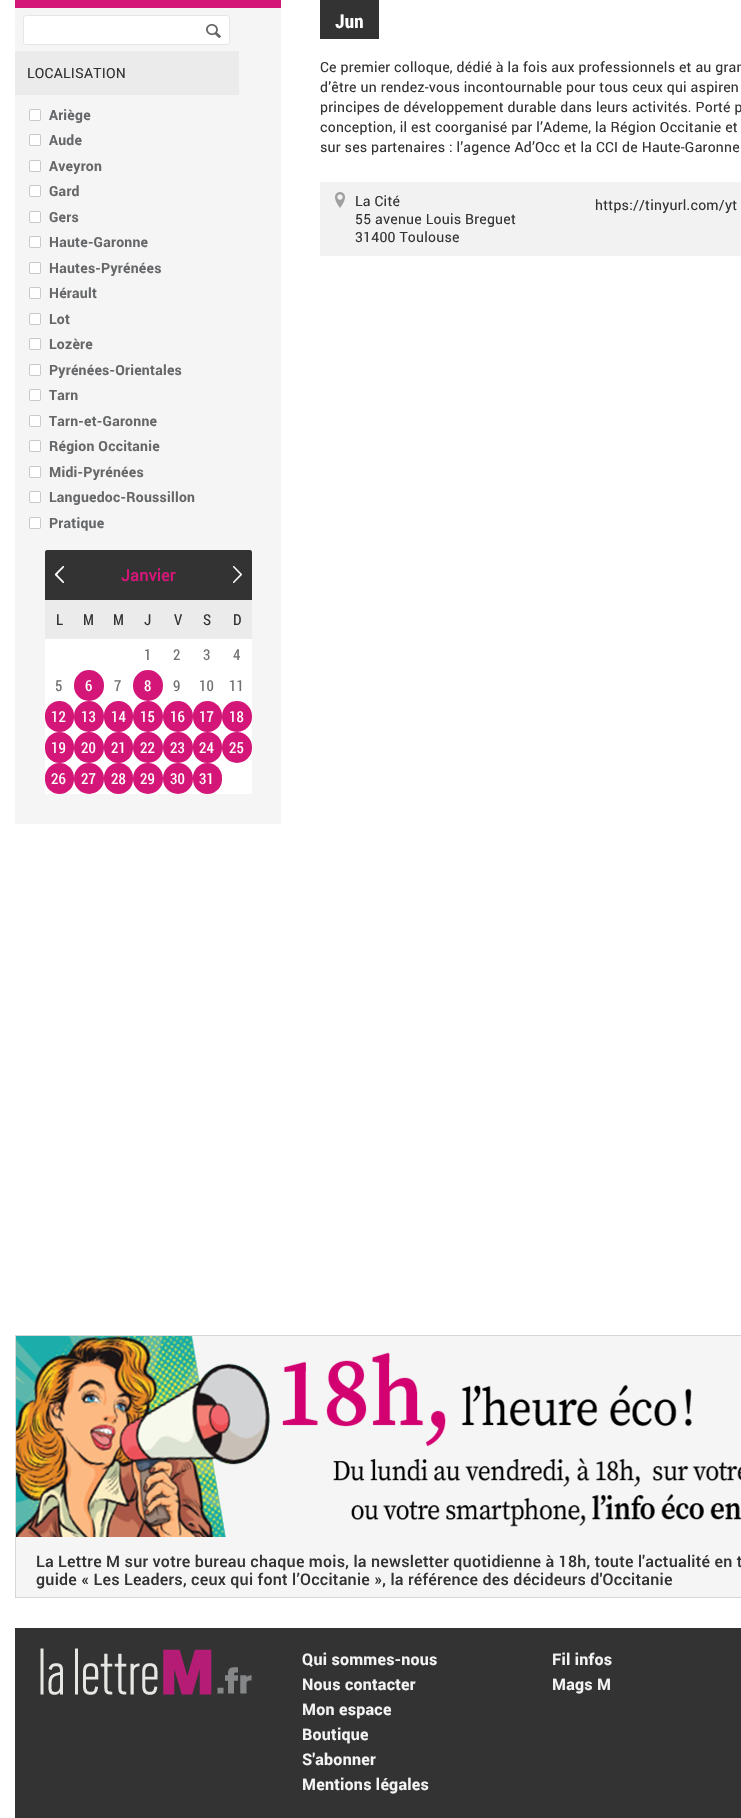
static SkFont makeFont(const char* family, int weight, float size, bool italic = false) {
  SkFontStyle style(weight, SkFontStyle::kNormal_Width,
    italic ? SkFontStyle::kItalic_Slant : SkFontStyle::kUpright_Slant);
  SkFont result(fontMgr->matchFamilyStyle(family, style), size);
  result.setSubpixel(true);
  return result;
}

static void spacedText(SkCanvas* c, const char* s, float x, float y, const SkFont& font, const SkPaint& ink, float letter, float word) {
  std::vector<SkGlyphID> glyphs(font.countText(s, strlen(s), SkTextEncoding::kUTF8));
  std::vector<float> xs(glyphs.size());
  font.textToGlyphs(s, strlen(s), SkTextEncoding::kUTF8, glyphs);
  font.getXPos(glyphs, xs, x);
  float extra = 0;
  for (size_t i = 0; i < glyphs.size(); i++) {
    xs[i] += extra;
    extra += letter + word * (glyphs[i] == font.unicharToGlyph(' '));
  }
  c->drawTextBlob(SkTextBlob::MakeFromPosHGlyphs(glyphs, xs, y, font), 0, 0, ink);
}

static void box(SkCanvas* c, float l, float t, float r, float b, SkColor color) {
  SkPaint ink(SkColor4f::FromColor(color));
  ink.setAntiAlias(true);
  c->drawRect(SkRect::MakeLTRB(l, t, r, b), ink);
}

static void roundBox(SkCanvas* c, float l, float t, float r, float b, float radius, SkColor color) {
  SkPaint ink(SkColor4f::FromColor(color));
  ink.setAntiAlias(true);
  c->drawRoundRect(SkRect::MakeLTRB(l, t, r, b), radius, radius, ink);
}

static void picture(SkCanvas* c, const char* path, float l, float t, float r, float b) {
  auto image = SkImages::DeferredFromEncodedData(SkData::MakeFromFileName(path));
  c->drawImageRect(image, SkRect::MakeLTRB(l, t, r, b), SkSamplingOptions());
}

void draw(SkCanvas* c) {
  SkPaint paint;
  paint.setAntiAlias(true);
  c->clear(0xffffffff);
  box(c, 15, 8, 281, 824, 0xfff5f5f5);
  box(c, 15, 0, 281, 8, 0xffd41678);
  roundBox(c, 23, 15, 230, 45, 3, 0xffffffff);
  picture(c, "img_01.png", 206, 24, 221, 38);
  paint.setStyle(SkPaint::kStroke_Style);
  paint.setStrokeWidth(1);
  paint.setColor(0xffe6e6e6);
  c->drawRoundRect(SkRect::MakeLTRB(23.5f, 15.5f, 229.5f, 44.5f), 2.5f, 2.5f, paint);
  box(c, 15, 51, 239, 95, 0xffebebeb);
  SkFont face1 = makeFont("Roboto", 400, 14);
  paint.setStyle(SkPaint::kFill_Style);
  paint.setColor(0xff333333);
  spacedText(c, "LOCALISATION", 27, 78, face1, paint, 0.25f, 0);
  picture(c, "img_02.png", 29, 109, 41, 121);
  SkFont face2 = makeFont("Roboto", 700, 14);
  paint.setColor(0xff666769);
  spacedText(c, "Ariège", 49, 120, face2, paint, 0.25f, 0);
  picture(c, "img_02.png", 29, 134, 41, 146);
  spacedText(c, "Aude", 49, 145, face2, paint, 0.25f, 0);
  picture(c, "img_02.png", 29, 160, 41, 172);
  spacedText(c, "Aveyron", 49, 171, face2, paint, 0.25f, 0);
  picture(c, "img_02.png", 29, 185, 41, 197);
  spacedText(c, "Gard", 49, 196, face2, paint, 0.25f, 0);
  picture(c, "img_02.png", 29, 211, 41, 223);
  spacedText(c, "Gers", 49, 222, face2, paint, 0.25f, 0);
  picture(c, "img_02.png", 29, 236, 41, 248);
  spacedText(c, "Haute-Garonne", 49, 247, face2, paint, 0.25f, 0);
  picture(c, "img_02.png", 29, 262, 41, 274);
  spacedText(c, "Hautes-Pyrénées", 49, 273, face2, paint, 0.25f, 0);
  picture(c, "img_02.png", 29, 287, 41, 299);
  spacedText(c, "Hérault", 49, 298, face2, paint, 0.25f, 0);
  picture(c, "img_02.png", 29, 313, 41, 325);
  spacedText(c, "Lot", 49, 324, face2, paint, 0.25f, 0);
  picture(c, "img_02.png", 29, 338, 41, 350);
  spacedText(c, "Lozère", 49, 349, face2, paint, 0.25f, 0);
  picture(c, "img_02.png", 29, 364, 41, 376);
  spacedText(c, "Pyrénées-Orientales", 49, 375, face2, paint, 0.25f, 0);
  picture(c, "img_02.png", 29, 389, 41, 401);
  spacedText(c, "Tarn", 49, 400, face2, paint, 0.25f, 0);
  picture(c, "img_02.png", 29, 415, 41, 427);
  spacedText(c, "Tarn-et-Garonne", 49, 426, face2, paint, 0.25f, 0);
  picture(c, "img_02.png", 29, 440, 41, 452);
  spacedText(c, "Région Occitanie", 49, 451, face2, paint, 0.25f, 0);
  picture(c, "img_02.png", 29, 466, 41, 478);
  spacedText(c, "Midi-Pyrénées", 49, 477, face2, paint, 0.25f, 0);
  picture(c, "img_02.png", 29, 491, 41, 503);
  spacedText(c, "Languedoc-Roussillon", 49, 502, face2, paint, 0.25f, 0);
  picture(c, "img_02.png", 29, 517, 41, 529);
  spacedText(c, "Pratique", 49, 528, face2, paint, 0.25f, 0);
  paint.setColor(0xff333333);
  c->drawPath(SkPathBuilder().moveTo(47, 550).lineTo(250, 550).cubicTo(251, 550, 252, 551, 252, 552).lineTo(252, 600).lineTo(45, 600).lineTo(45, 552).cubicTo(45, 551, 46, 550, 47, 550).close().detach(), paint);
  picture(c, "img_03.png", 55, 566, 64, 583);
  picture(c, "img_04.png", 233, 566, 242, 583);
  SkFont face3 = makeFont("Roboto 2", 700, 16);
  paint.setColor(0xffd41678);
  spacedText(c, "Janvier", 121, 581, face3, paint, 0.25f, 0);
  box(c, 45, 600, 252, 639, 0xffebebeb);
  SkFont face4 = makeFont("Roboto Condensed", 400, 15);
  paint.setColor(0xff333333);
  spacedText(c, "L", 56, 625, face4, paint, 0.25f, 0);
  spacedText(c, "M", 83, 625, face4, paint, 0.25f, 0);
  spacedText(c, "M", 113, 625, face4, paint, 0.25f, 0);
  spacedText(c, "J", 144, 625, face4, paint, 0.25f, 0);
  spacedText(c, "V", 174, 625, face4, paint, 0.25f, 0);
  spacedText(c, "S", 203, 625, face4, paint, 0.25f, 0);
  spacedText(c, "D", 233, 625, face4, paint, 0.25f, 0);
  box(c, 45, 639, 252, 794, 0xffffffff);
  paint.setColor(0xff707173);
  spacedText(c, "1", 144, 660, face4, paint, 0.25f, 0);
  spacedText(c, "2", 173, 660, face4, paint, 0.25f, 0);
  spacedText(c, "3", 203, 660, face4, paint, 0.25f, 0);
  spacedText(c, "4", 233, 660, face4, paint, 0.25f, 0);
  spacedText(c, "5", 55, 691, face4, paint, 0.25f, 0);
  roundBox(c, 74, 670, 104, 701, 15, 0xffd41678);
  paint.setColor(0xffffffff);
  spacedText(c, "6", 85, 691, face4, paint, 0.25f, 0);
  paint.setColor(0xff707173);
  spacedText(c, "7", 114, 691, face4, paint, 0.25f, 0);
  roundBox(c, 133, 670, 163, 701, 15, 0xffd41678);
  paint.setColor(0xffffffff);
  spacedText(c, "8", 144, 691, face4, paint, 0.25f, 0);
  paint.setColor(0xff707173);
  spacedText(c, "9", 173, 691, face4, paint, 0.25f, 0);
  spacedText(c, "10", 199, 691, face4, paint, 0.25f, 0);
  spacedText(c, "11", 229, 691, face4, paint, 0.25f, 0);
  roundBox(c, 45, 701, 74, 732, 14.5f, 0xffd41678);
  paint.setColor(0xffffffff);
  spacedText(c, "12", 51, 722, face4, paint, 0.25f, 0);
  roundBox(c, 74, 701, 104, 732, 15, 0xffd41678);
  spacedText(c, "13", 81, 722, face4, paint, 0.25f, 0);
  roundBox(c, 104, 701, 133, 732, 14.5f, 0xffd41678);
  spacedText(c, "14", 111, 722, face4, paint, 0.25f, 0);
  roundBox(c, 133, 701, 163, 732, 15, 0xffd41678);
  spacedText(c, "15", 140, 722, face4, paint, 0.25f, 0);
  roundBox(c, 163, 701, 193, 732, 15, 0xffd41678);
  spacedText(c, "16", 170, 722, face4, paint, 0.25f, 0);
  roundBox(c, 193, 701, 222, 732, 14.5f, 0xffd41678);
  spacedText(c, "17", 199, 722, face4, paint, 0.25f, 0);
  roundBox(c, 222, 701, 252, 732, 15, 0xffd41678);
  spacedText(c, "18", 229, 722, face4, paint, 0.25f, 0);
  roundBox(c, 45, 732, 74, 763, 14.5f, 0xffd41678);
  spacedText(c, "19", 51, 753, face4, paint, 0.25f, 0);
  roundBox(c, 74, 732, 104, 763, 15, 0xffd41678);
  spacedText(c, "20", 81, 753, face4, paint, 0.25f, 0);
  roundBox(c, 104, 732, 133, 763, 14.5f, 0xffd41678);
  spacedText(c, "21", 111, 753, face4, paint, 0.25f, 0);
  roundBox(c, 133, 732, 163, 763, 15, 0xffd41678);
  spacedText(c, "22", 140, 753, face4, paint, 0.25f, 0);
  roundBox(c, 163, 732, 193, 763, 15, 0xffd41678);
  spacedText(c, "23", 170, 753, face4, paint, 0.25f, 0);
  roundBox(c, 193, 732, 222, 763, 14.5f, 0xffd41678);
  spacedText(c, "24", 199, 753, face4, paint, 0.25f, 0);
  roundBox(c, 222, 732, 252, 763, 15, 0xffd41678);
  spacedText(c, "25", 229, 753, face4, paint, 0.25f, 0);
  roundBox(c, 45, 763, 74, 794, 14.5f, 0xffd41678);
  spacedText(c, "26", 51, 784, face4, paint, 0.25f, 0);
  roundBox(c, 74, 763, 104, 794, 15, 0xffd41678);
  spacedText(c, "27", 81, 784, face4, paint, 0.25f, 0);
  roundBox(c, 104, 763, 133, 794, 14.5f, 0xffd41678);
  spacedText(c, "28", 111, 784, face4, paint, 0.25f, 0);
  roundBox(c, 133, 763, 163, 794, 15, 0xffd41678);
  spacedText(c, "29", 140, 784, face4, paint, 0.25f, 0);
  roundBox(c, 163, 763, 193, 794, 15, 0xffd41678);
  spacedText(c, "30", 170, 784, face4, paint, 0.25f, 0);
  roundBox(c, 193, 763, 222, 794, 14.5f, 0xffd41678);
  spacedText(c, "31", 199, 784, face4, paint, 0.25f, 0);
  box(c, 320, 0, 379, 39, 0xff333333);
  SkFont face5 = makeFont("Roboto Condensed", 700, 19);
  spacedText(c, "Jun", 335, 28, face5, paint, 0.25f, 0);
  paint.setColor(0xff333333);
  spacedText(c, "Ce premier colloque, dédié à la fois aux professionnels et au gran", 320, 72, face1, paint, 0.25f, 0);
  spacedText(c, "d’être un rendez-vous incontournable pour tous ceux qui aspiren", 320, 92, face1, paint, 0.25f, 0);
  spacedText(c, "principes de développement durable dans leurs activités. Porté p", 320, 112, face1, paint, 0.25f, 0);
  spacedText(c, "conception, il est coorganisé par l’Ademe, la Région Occitanie et", 320, 132, face1, paint, 0.25f, 0);
  spacedText(c, "sur ses partenaires : l’agence Ad’Occ et la CCI de Haute-Garonne", 320, 152, face1, paint, 0.25f, 0);
  box(c, 320, 182, 741, 256, 0xfff2f2f2);
  picture(c, "img_05.png", 335, 192, 345, 208);
  spacedText(c, "La Cité", 355, 206, face1, paint, 0.25f, 0);
  spacedText(c, "55 avenue Louis Breguet", 355, 224, face1, paint, 0.25f, 0);
  spacedText(c, "31400 Toulouse", 355, 242, face1, paint, 0.25f, 0);
  spacedText(c, "https://tinyurl.com/yt", 595, 210, face1, paint, 0.25f, 0);
  box(c, 16, 1537, 741, 1597, 0xfff5f5f5);
  paint.setStyle(SkPaint::kStroke_Style);
  paint.setColor(0xffd6d6d6);
  c->drawRect(SkRect::MakeLTRB(15.5f, 1335.5f, 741.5f, 1597.5f), paint);
  picture(c, "img_06.png", 16, 1336, 741, 1537);
  SkFont face6 = makeFont("Roboto", 500, 16);
  paint.setStyle(SkPaint::kFill_Style);
  paint.setColor(0xff333333);
  spacedText(c, "La Lettre M sur votre bureau chaque mois, la newsletter quotidienne à 18h, toute l'actualité en t", 36, 1567, face6, paint, 0.25f, 0);
  spacedText(c, "guide « Les Leaders, ceux qui font l’Occitanie », la référence des décideurs d'Occitanie", 36, 1585, face6, paint, 0.25f, 0);
  box(c, 15, 1628, 741, 1818, 0xff333333);
  picture(c, "img_07.png", 40, 1648, 252, 1695);
  SkFont face7 = makeFont("Roboto", 700, 16);
  paint.setColor(0xfff4f4f4);
  spacedText(c, "Qui sommes-nous", 302, 1665, face7, paint, 0.25f, 0);
  spacedText(c, "Nous contacter", 302, 1690, face7, paint, 0.25f, 0);
  spacedText(c, "Mon espace", 302, 1715, face7, paint, 0.25f, 0);
  spacedText(c, "Boutique", 302, 1740, face7, paint, 0.25f, 0);
  spacedText(c, "S'abonner", 302, 1765, face7, paint, 0.25f, 0);
  spacedText(c, "Mentions légales", 302, 1790, face7, paint, 0.25f, 0);
  spacedText(c, "Fil infos", 552, 1665, face7, paint, 0.25f, 0);
  spacedText(c, "Mags M", 552, 1690, face7, paint, 0.25f, 0);
}
